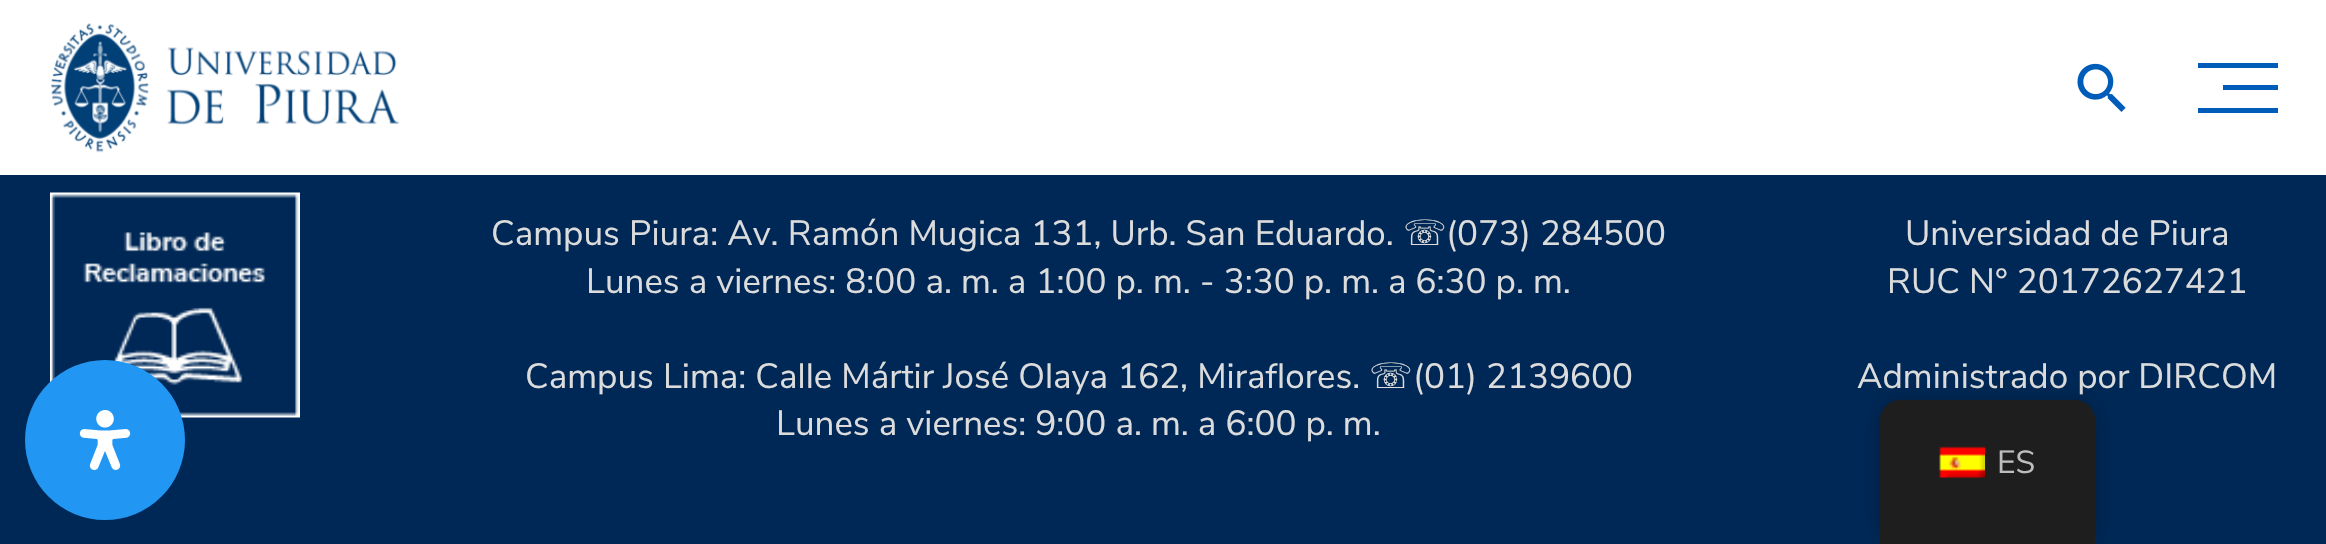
static SkFont makeFont(const char* family, int weight, float size, bool italic = false) {
  SkFontStyle style(weight, SkFontStyle::kNormal_Width,
    italic ? SkFontStyle::kItalic_Slant : SkFontStyle::kUpright_Slant);
  SkFont result(fontMgr->matchFamilyStyle(family, style), size);
  result.setSubpixel(true);
  return result;
}

static void text(SkCanvas* c, const char* s, float x, float y, const SkFont& font, SkColor color) {
  SkPaint ink(SkColor4f::FromColor(color));
  ink.setAntiAlias(true);
  c->drawString(s, x, y, font, ink);
}

static void box(SkCanvas* c, float l, float t, float r, float b, SkColor color) {
  SkPaint ink(SkColor4f::FromColor(color));
  ink.setAntiAlias(true);
  c->drawRect(SkRect::MakeLTRB(l, t, r, b), ink);
}

static void picture(SkCanvas* c, const char* path, float l, float t, float r, float b) {
  auto image = SkImages::DeferredFromEncodedData(SkData::MakeFromFileName(path));
  c->drawImageRect(image, SkRect::MakeLTRB(l, t, r, b), SkSamplingOptions());
}

void draw(SkCanvas* c) {
  SkPaint paint;
  paint.setAntiAlias(true);
  c->clear(0xff002856);
  box(c, 0, 0, 2326, 175, 0xffffffff);
  picture(c, "img_01.png", 51, 23, 400, 153);
  picture(c, "img_02.png", 2077, 63, 2126, 112);
  box(c, 2198, 63, 2278, 68, 0xff005cb9);
  box(c, 2223, 85, 2278, 90, 0xff005cb9);
  box(c, 2198, 108, 2278, 113, 0xff005cb9);
  picture(c, "img_04.png", 50, 192, 300, 418);
  paint.setColor(0xff2196f3);
  c->drawCircle(105, 440, 80, paint);
  picture(c, "img_03.png", 79, 410, 131, 470);
  SkFont face1 = makeFont("Nunito Sans", 400, 35);
  text(c, "Campus Piura: Av. Ramón Mugica 131, Urb. San Eduardo.", 491, 245, face1, 0xffdcdcdc);
  SkFont face2 = makeFont("DejaVu Sans", 400, 35);
  text(c, "☏", 1403, 245, face2, 0xffdcdcdc);
  text(c, "(073) 284500", 1446, 245, face1, 0xffdcdcdc);
  text(c, "Lunes a viernes: 8:00 a. m. a 1:00 p. m. - 3:30 p. m. a 6:30 p. m.", 586, 293, face1, 0xffdcdcdc);
  text(c, "Campus Lima: Calle Mártir José Olaya 162, Miraflores.", 525, 388, face1, 0xffdcdcdc);
  text(c, "☏", 1369, 388, face2, 0xffdcdcdc);
  text(c, "(01) 2139600", 1413, 388, face1, 0xffdcdcdc);
  text(c, "Lunes a viernes: 9:00 a. m. a 6:00 p. m.", 776, 435, face1, 0xffdcdcdc);
  text(c, "Universidad de Piura", 1905, 245, face1, 0xffdcdcdc);
  text(c, "RUC N° 20172627421", 1887, 293, face1, 0xffdcdcdc);
  text(c, "Administrado por DIRCOM", 1857, 388, face1, 0xffdcdcdc);
  paint.setColor(0x40000000);
  paint.setMaskFilter(SkMaskFilter::MakeBlur(kNormal_SkBlurStyle, 10));
  c->drawRoundRect(SkRect::MakeLTRB(1880, 400, 2095, 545), 20, 20, paint);
  paint.setMaskFilter(nullptr);
  paint.setColor(0xff1e1e1e);
  c->drawPath(SkPathBuilder().moveTo(1900, 400).lineTo(2075, 400).cubicTo(2086, 400, 2095, 409, 2095, 420).lineTo(2095, 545).lineTo(1880, 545).lineTo(1880, 420).cubicTo(1880, 409, 1889, 400, 1900, 400).close().detach(), paint);
  picture(c, "img_05.png", 1939, 446, 1985, 478);
  SkFont face3 = makeFont("Nunito Sans", 400, 32);
  text(c, "ES", 1997, 473, face3, 0xffbdbdbd);
}
